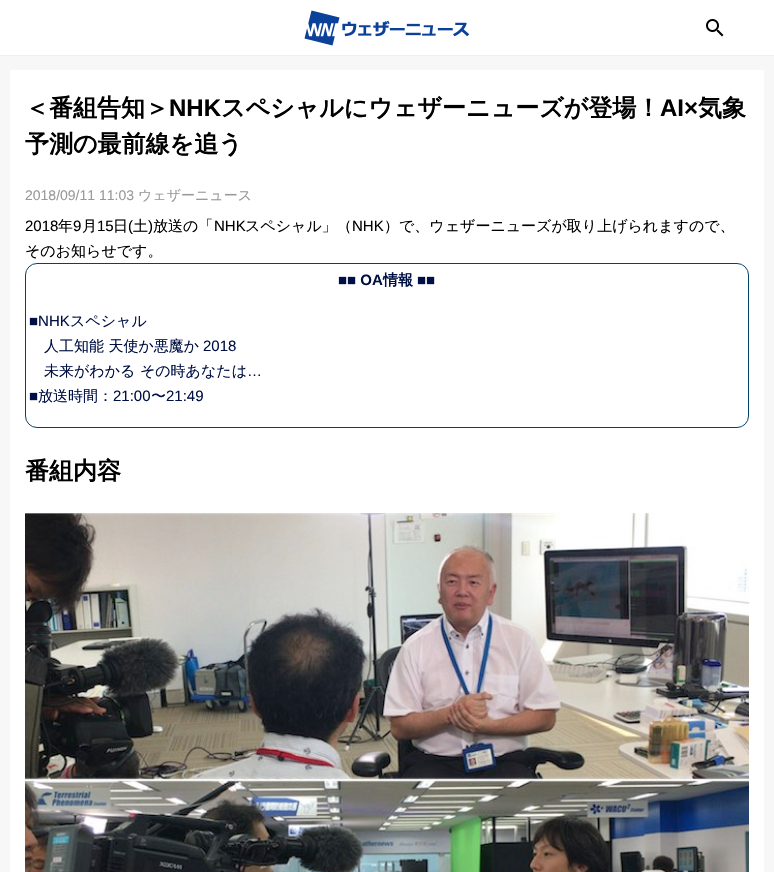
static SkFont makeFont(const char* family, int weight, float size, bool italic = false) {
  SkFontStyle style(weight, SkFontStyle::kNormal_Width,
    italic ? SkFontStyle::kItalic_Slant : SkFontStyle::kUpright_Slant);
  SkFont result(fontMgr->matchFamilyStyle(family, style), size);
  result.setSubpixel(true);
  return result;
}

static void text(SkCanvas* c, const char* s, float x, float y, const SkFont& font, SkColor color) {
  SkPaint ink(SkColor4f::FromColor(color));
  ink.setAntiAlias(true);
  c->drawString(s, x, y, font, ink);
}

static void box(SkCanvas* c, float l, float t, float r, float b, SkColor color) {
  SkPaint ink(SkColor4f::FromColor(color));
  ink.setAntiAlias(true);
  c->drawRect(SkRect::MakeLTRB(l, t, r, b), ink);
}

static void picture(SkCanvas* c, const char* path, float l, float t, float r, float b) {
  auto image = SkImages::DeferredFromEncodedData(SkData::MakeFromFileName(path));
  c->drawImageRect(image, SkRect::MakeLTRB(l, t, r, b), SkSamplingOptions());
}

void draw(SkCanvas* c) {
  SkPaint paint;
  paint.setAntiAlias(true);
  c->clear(0xfff7f7f7);
  box(c, 0, 0, 774, 55, 0xffffffff);
  box(c, 0, 55, 774, 56, 0xffeeeeee);
  picture(c, "img_01.png", 304, 10, 470, 46);
  picture(c, "img_02.png", 706, 19, 724, 37);
  box(c, 10, 70, 764, 872, 0xffffffff);
  SkFont face1 = makeFont("WenQuanYi Zen Hei", 700, 24);
  text(c, "＜番組告知＞", 25, 116, face1, 0xff000000);
  SkFont face2 = makeFont("Liberation Sans", 700, 24);
  text(c, "NHK", 169, 116, face2, 0xff000000);
  text(c, "スペシャルにウェザーニューズが登場！", 221, 116, face1, 0xff000000);
  text(c, "AI×", 660, 116, face2, 0xff000000);
  text(c, "気象", 698, 116, face1, 0xff000000);
  text(c, "予測の最前線を追う", 25, 152, face1, 0xff000000);
  SkFont face3 = makeFont("Liberation Sans", 400, 14);
  text(c, "2018/09/11 11:03", 25, 200, face3, 0xff999999);
  SkFont face4 = makeFont("WenQuanYi Zen Hei", 500, 14);
  text(c, "ウェザーニュース", 138, 200, face4, 0xff999999);
  SkFont face5 = makeFont("Liberation Sans", 400, 15);
  text(c, "2018", 25, 231, face5, 0xff000000);
  SkFont face6 = makeFont("WenQuanYi Zen Hei", 500, 15);
  text(c, "年", 58, 231, face6, 0xff000000);
  text(c, "9", 73, 231, face5, 0xff000000);
  text(c, "月", 82, 231, face6, 0xff000000);
  text(c, "15", 97, 231, face5, 0xff000000);
  text(c, "日", 113, 231, face6, 0xff000000);
  text(c, "(", 128, 231, face5, 0xff000000);
  text(c, "土", 133, 231, face6, 0xff000000);
  text(c, ")", 148, 231, face5, 0xff000000);
  text(c, "放送の「", 153, 231, face6, 0xff000000);
  text(c, "NHK", 214, 231, face5, 0xff000000);
  text(c, "スペシャル」（", 245, 231, face6, 0xff000000);
  text(c, "NHK", 352, 231, face5, 0xff000000);
  text(c, "）で、ウェザーニューズが取り上げられますので、", 384, 231, face6, 0xff000000);
  text(c, "そのお知らせです。", 25, 256, face6, 0xff000000);
  paint.setStyle(SkPaint::kStroke_Style);
  paint.setStrokeWidth(1);
  paint.setColor(0xff004466);
  c->drawRoundRect(SkRect::MakeLTRB(25.5f, 263.5f, 748.5f, 427.5f), 11.5f, 11.5f, paint);
  SkFont face7 = makeFont("Liberation Sans", 700, 15);
  text(c, "■■ OA", 338, 285, face7, 0xff001044);
  SkFont face8 = makeFont("WenQuanYi Zen Hei", 700, 15);
  text(c, "情報", 383, 285, face8, 0xff001044);
  text(c, "■■", 417, 285, face7, 0xff001044);
  text(c, "■NHK", 29, 326, face5, 0xff001044);
  text(c, "スペシャル", 70, 326, face6, 0xff001044);
  text(c, "人工知能 天使か悪魔か", 44, 351, face6, 0xff001044);
  text(c, "2018", 203, 351, face5, 0xff001044);
  text(c, "未来がわかる その時あなたは", 44, 376, face6, 0xff001044);
  text(c, "…", 247, 376, face5, 0xff001044);
  text(c, "■", 29, 401, face5, 0xff001044);
  text(c, "放送時間：", 38, 401, face6, 0xff001044);
  text(c, "21:00", 113, 401, face5, 0xff001044);
  text(c, "〜", 151, 401, face6, 0xff001044);
  text(c, "21:49", 166, 401, face5, 0xff001044);
  text(c, "番組内容", 25, 479, face1, 0xff000000);
  picture(c, "img_03.png", 25, 513, 749, 872);
}
